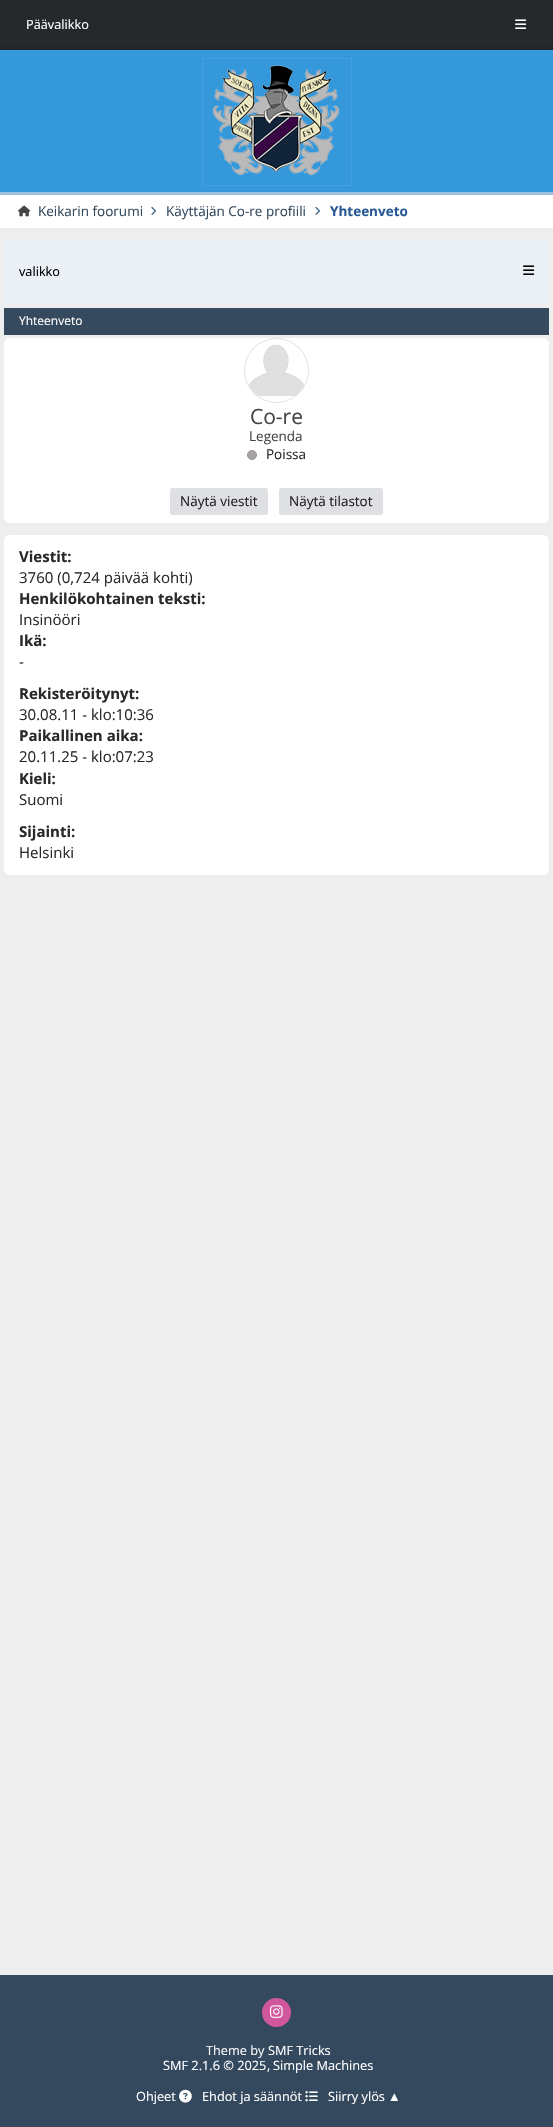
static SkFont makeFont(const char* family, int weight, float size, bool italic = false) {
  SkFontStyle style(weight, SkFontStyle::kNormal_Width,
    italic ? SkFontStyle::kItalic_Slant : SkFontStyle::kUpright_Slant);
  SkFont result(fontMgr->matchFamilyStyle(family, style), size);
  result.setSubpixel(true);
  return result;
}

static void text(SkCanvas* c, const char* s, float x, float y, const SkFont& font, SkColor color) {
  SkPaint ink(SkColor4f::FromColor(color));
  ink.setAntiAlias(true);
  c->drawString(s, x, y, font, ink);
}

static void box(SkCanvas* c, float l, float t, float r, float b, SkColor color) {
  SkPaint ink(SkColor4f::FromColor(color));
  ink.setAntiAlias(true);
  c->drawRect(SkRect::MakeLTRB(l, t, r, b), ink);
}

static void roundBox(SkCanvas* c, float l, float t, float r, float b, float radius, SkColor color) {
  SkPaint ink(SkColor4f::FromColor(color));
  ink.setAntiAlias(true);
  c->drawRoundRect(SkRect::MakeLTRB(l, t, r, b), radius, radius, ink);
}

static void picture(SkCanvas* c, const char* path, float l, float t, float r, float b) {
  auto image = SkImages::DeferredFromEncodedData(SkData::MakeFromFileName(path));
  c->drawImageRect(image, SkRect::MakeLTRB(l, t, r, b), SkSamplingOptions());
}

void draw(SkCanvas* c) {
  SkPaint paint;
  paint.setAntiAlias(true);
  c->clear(0xffeeeeee);
  box(c, 0, 0, 553, 47, 0xff26292b);
  box(c, 0, 47, 553, 50, 0xff222427);
  SkFont face1 = makeFont("Open Sans", 400, 12.75f);
  text(c, "Päävalikko", 26, 29, face1, 0xffffffff);
  picture(c, "img_01.png", 515, 19, 527, 29);
  box(c, 0, 50, 553, 192, 0xff3498db);
  box(c, 0, 192, 553, 195, 0xff9fbfe0);
  picture(c, "img_02.png", 202, 58, 352, 186);
  box(c, 0, 195, 553, 228, 0xffffffff);
  picture(c, "img_03.png", 18, 205, 31, 217);
  SkFont face2 = makeFont("Open Sans", 400, 13.5f);
  text(c, "Keikarin foorumi", 38, 216, face2, 0xff34495e);
  picture(c, "img_04.png", 151, 206, 156, 215);
  text(c, "Käyttäjän Co-re profiili", 166, 216, face2, 0xff34495e);
  picture(c, "img_04.png", 315, 206, 320, 215);
  SkFont face3 = makeFont("Open Sans", 700, 13.5f);
  text(c, "Yhteenveto", 330, 216, face3, 0xff285995);
  roundBox(c, 4, 239, 549, 304, 4, 0xffeaf0f5);
  text(c, "valikko", 19, 276, face1, 0xff000000);
  picture(c, "img_05.png", 523, 265, 535, 275);
  box(c, 4, 308, 549, 335, 0xff354a5f);
  SkFont face4 = makeFont("Open Sans", 400, 12);
  text(c, "Yhteenveto", 19, 325, face4, 0xffffffff);
  roundBox(c, 4, 338, 549, 523, 6, 0xffffffff);
  paint.setStyle(SkPaint::kStroke_Style);
  paint.setStrokeWidth(1);
  paint.setColor(0xffe0e0e0);
  c->drawCircle(276.5f, 370.5f, 32, paint);
  picture(c, "img_06.png", 249, 344, 304, 396);
  SkFont face5 = makeFont("Open Sans", 400, 21);
  text(c, "Co-re", 250, 424, face5, 0xff454545);
  text(c, "Legenda", 249, 441, face2, 0xff454545);
  paint.setStyle(SkPaint::kFill_Style);
  paint.setColor(0xffa8a3a3);
  c->drawCircle(252, 455, 4.5f, paint);
  paint.setStyle(SkPaint::kStroke_Style);
  paint.setColor(0xff969292);
  c->drawCircle(252, 455, 4.5f, paint);
  text(c, "Poissa", 266, 459, face2, 0xff292929);
  roundBox(c, 170, 488, 268, 515, 2.5f, 0xffdee0e3);
  text(c, "Näytä viestit", 180, 506, face2, 0xff222222);
  roundBox(c, 279, 488, 383, 515, 2.5f, 0xffdee0e3);
  text(c, "Näytä tilastot", 289, 506, face2, 0xff222222);
  roundBox(c, 4, 535, 549, 875, 6, 0xffffffff);
  SkFont face6 = makeFont("Open Sans", 700, 15);
  text(c, "Viestit:", 19, 562, face6, 0xff292929);
  SkFont face7 = makeFont("Open Sans", 400, 15);
  text(c, "3760 (0,724 päivää kohti)", 19, 583, face7, 0xff292929);
  text(c, "Henkilökohtainen teksti:", 19, 604, face6, 0xff292929);
  text(c, "Insinööri", 19, 625, face7, 0xff292929);
  text(c, "Ikä:", 19, 646, face6, 0xff292929);
  text(c, "-", 19, 667, face7, 0xff292929);
  text(c, "Rekisteröitynyt:", 19, 699, face6, 0xff292929);
  text(c, "30.08.11 - klo:10:36", 19, 720, face7, 0xff292929);
  text(c, "Paikallinen aika:", 19, 741, face6, 0xff292929);
  text(c, "20.11.25 - klo:07:23", 19, 762, face7, 0xff292929);
  text(c, "Kieli:", 19, 784, face6, 0xff292929);
  text(c, "Suomi", 19, 805, face7, 0xff292929);
  text(c, "Sijainti:", 19, 837, face6, 0xff292929);
  text(c, "Helsinki", 19, 858, face7, 0xff292929);
  box(c, 0, 1975, 553, 2127, 0xff34495e);
  paint.setStyle(SkPaint::kFill_Style);
  paint.setColor(0xffd1579c);
  c->drawCircle(276.5f, 2012.5f, 14.5f, paint);
  picture(c, "img_07.png", 270, 2005, 283, 2018);
  text(c, "Theme by", 206, 2055, face1, 0xfff5f5f5);
  text(c, "SMF Tricks", 268, 2055, face1, 0xffffffff);
  text(c, "SMF 2.1.6 © 2025", 163, 2070, face1, 0xffffffff);
  text(c, ",", 267, 2070, face1, 0xfff5f5f5);
  text(c, "Simple Machines", 273, 2070, face1, 0xffffffff);
  text(c, "Ohjeet", 136, 2101, face1, 0xffffffff);
  picture(c, "img_08.png", 179, 2089, 192, 2103);
  text(c, "Ehdot ja säännöt", 202, 2101, face1, 0xffffffff);
  picture(c, "img_09.png", 305, 2091, 318, 2102);
  text(c, "Siirry ylös", 328, 2101, face1, 0xffffffff);
  SkFont face8 = makeFont("Liberation Sans", 400, 12.75f);
  text(c, "▲", 388, 2101, face8, 0xffffffff);
}
